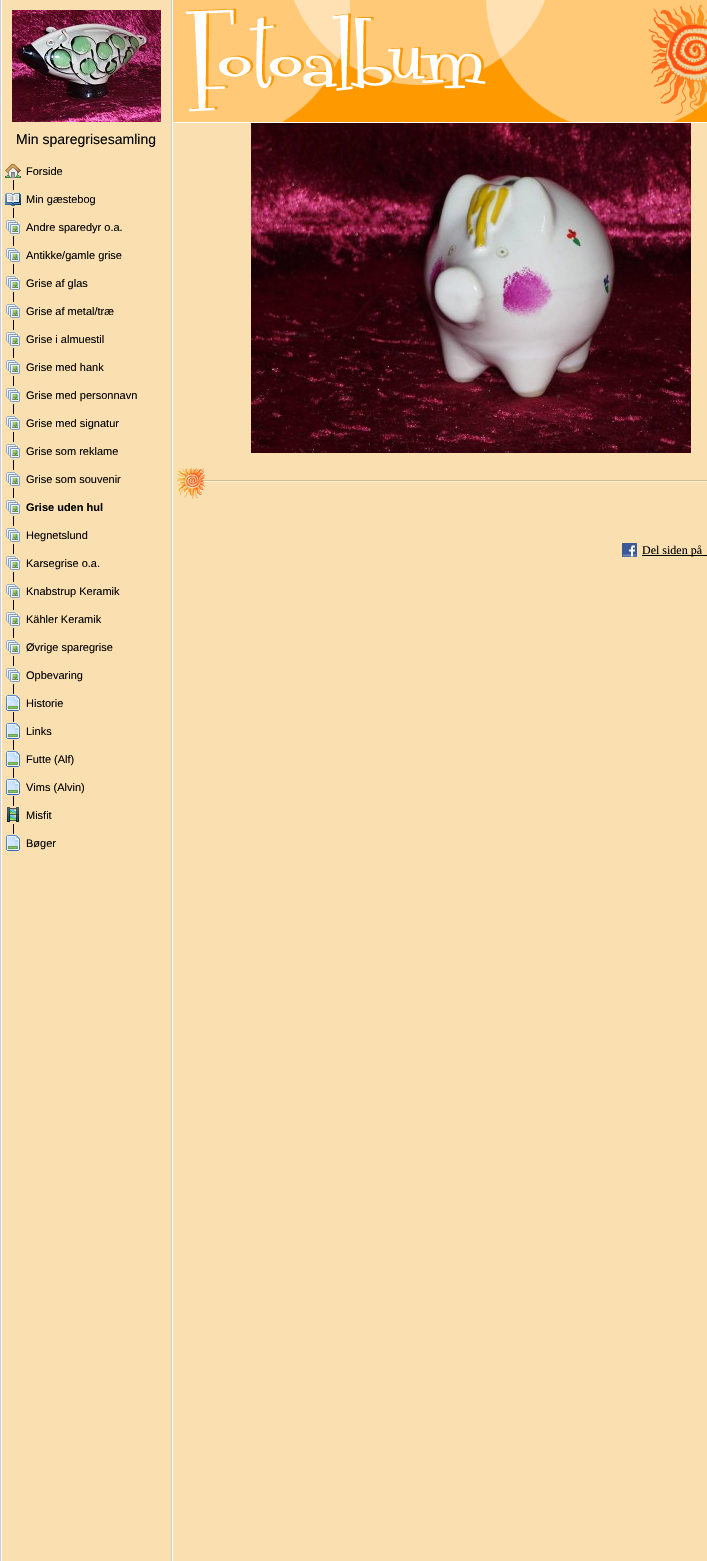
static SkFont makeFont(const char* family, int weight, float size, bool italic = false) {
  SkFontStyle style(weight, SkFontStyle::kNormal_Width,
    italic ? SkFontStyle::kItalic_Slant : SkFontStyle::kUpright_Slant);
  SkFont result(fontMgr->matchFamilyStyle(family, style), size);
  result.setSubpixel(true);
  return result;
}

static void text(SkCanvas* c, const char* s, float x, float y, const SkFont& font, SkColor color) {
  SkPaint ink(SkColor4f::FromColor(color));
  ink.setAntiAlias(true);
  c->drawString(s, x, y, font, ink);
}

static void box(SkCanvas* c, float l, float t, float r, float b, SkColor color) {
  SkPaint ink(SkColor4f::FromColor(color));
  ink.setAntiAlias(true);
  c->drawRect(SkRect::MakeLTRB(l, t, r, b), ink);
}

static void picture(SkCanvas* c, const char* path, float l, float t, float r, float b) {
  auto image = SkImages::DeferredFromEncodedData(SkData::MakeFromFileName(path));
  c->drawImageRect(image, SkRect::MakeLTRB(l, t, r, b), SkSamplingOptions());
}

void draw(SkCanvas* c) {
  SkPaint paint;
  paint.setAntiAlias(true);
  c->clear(0xffffffff);
  box(c, 0, 0, 1, 1561, 0xffcccccc);
  box(c, 2, 0, 171, 1561, 0xfffae0b0);
  picture(c, "img_01.png", 12, 10, 161, 122);
  SkFont face1 = makeFont("Liberation Sans", 400, 14);
  text(c, "Min sparegrisesamling", 16, 144, face1, 0xff000000);
  box(c, 13, 180, 14, 185, 0xff000000);
  picture(c, "img_02.png", 5, 164, 21, 178);
  SkFont face2 = makeFont("Liberation Sans", 400, 11);
  text(c, "Forside", 26, 175, face2, 0xff000000);
  picture(c, "img_03.png", 13, 185, 14, 213);
  picture(c, "img_04.png", 5, 193, 21, 206);
  text(c, "Min gæstebog", 26, 203, face2, 0xff000000);
  picture(c, "img_03.png", 13, 213, 14, 241);
  picture(c, "img_05.png", 6, 220, 20, 234);
  text(c, "Andre sparedyr o.a.", 26, 231, face2, 0xff000000);
  picture(c, "img_03.png", 13, 241, 14, 269);
  picture(c, "img_05.png", 6, 248, 20, 262);
  text(c, "Antikke/gamle grise", 26, 259, face2, 0xff000000);
  picture(c, "img_03.png", 13, 269, 14, 297);
  picture(c, "img_05.png", 6, 276, 20, 290);
  text(c, "Grise af glas", 26, 287, face2, 0xff000000);
  picture(c, "img_03.png", 13, 297, 14, 325);
  picture(c, "img_05.png", 6, 304, 20, 318);
  text(c, "Grise af metal/træ", 26, 315, face2, 0xff000000);
  picture(c, "img_03.png", 13, 325, 14, 353);
  picture(c, "img_05.png", 6, 332, 20, 346);
  text(c, "Grise i almuestil", 26, 343, face2, 0xff000000);
  picture(c, "img_03.png", 13, 353, 14, 381);
  picture(c, "img_05.png", 6, 360, 20, 374);
  text(c, "Grise med hank", 26, 371, face2, 0xff000000);
  picture(c, "img_03.png", 13, 381, 14, 409);
  picture(c, "img_05.png", 6, 388, 20, 402);
  text(c, "Grise med personnavn", 26, 399, face2, 0xff000000);
  picture(c, "img_03.png", 13, 409, 14, 437);
  picture(c, "img_05.png", 6, 416, 20, 430);
  text(c, "Grise med signatur", 26, 427, face2, 0xff000000);
  picture(c, "img_03.png", 13, 437, 14, 465);
  picture(c, "img_05.png", 6, 444, 20, 458);
  text(c, "Grise som reklame", 26, 455, face2, 0xff000000);
  picture(c, "img_03.png", 13, 465, 14, 493);
  picture(c, "img_05.png", 6, 472, 20, 486);
  text(c, "Grise som souvenir", 26, 483, face2, 0xff000000);
  picture(c, "img_03.png", 13, 493, 14, 521);
  picture(c, "img_05.png", 6, 500, 20, 514);
  SkFont face3 = makeFont("Liberation Sans", 700, 11);
  text(c, "Grise uden hul", 26, 511, face3, 0xff000000);
  picture(c, "img_03.png", 13, 521, 14, 549);
  picture(c, "img_05.png", 6, 528, 20, 542);
  text(c, "Hegnetslund", 26, 539, face2, 0xff000000);
  picture(c, "img_03.png", 13, 549, 14, 577);
  picture(c, "img_05.png", 6, 556, 20, 570);
  text(c, "Karsegrise o.a.", 26, 567, face2, 0xff000000);
  picture(c, "img_03.png", 13, 577, 14, 605);
  picture(c, "img_05.png", 6, 584, 20, 598);
  text(c, "Knabstrup Keramik", 26, 595, face2, 0xff000000);
  picture(c, "img_03.png", 13, 605, 14, 633);
  picture(c, "img_05.png", 6, 612, 20, 626);
  text(c, "Kähler Keramik", 26, 623, face2, 0xff000000);
  picture(c, "img_03.png", 13, 633, 14, 661);
  picture(c, "img_05.png", 6, 640, 20, 654);
  text(c, "Øvrige sparegrise", 26, 651, face2, 0xff000000);
  picture(c, "img_03.png", 13, 661, 14, 689);
  picture(c, "img_05.png", 6, 668, 20, 682);
  text(c, "Opbevaring", 26, 679, face2, 0xff000000);
  picture(c, "img_03.png", 13, 689, 14, 717);
  picture(c, "img_06.png", 6, 695, 20, 711);
  text(c, "Historie", 26, 707, face2, 0xff000000);
  picture(c, "img_03.png", 13, 717, 14, 745);
  picture(c, "img_06.png", 6, 723, 20, 739);
  text(c, "Links", 26, 735, face2, 0xff000000);
  picture(c, "img_03.png", 13, 745, 14, 773);
  picture(c, "img_06.png", 6, 751, 20, 767);
  text(c, "Futte (Alf)", 26, 763, face2, 0xff000000);
  picture(c, "img_03.png", 13, 773, 14, 801);
  picture(c, "img_06.png", 6, 779, 20, 795);
  text(c, "Vims (Alvin)", 26, 791, face2, 0xff000000);
  picture(c, "img_03.png", 13, 801, 14, 829);
  picture(c, "img_07.png", 7, 807, 19, 822);
  text(c, "Misfit", 26, 819, face2, 0xff000000);
  box(c, 13, 829, 14, 834, 0xff000000);
  picture(c, "img_06.png", 6, 835, 20, 851);
  text(c, "Bøger", 26, 847, face2, 0xff000000);
  box(c, 171, 0, 172, 1561, 0xffcccccc);
  box(c, 173, 123, 707, 1561, 0xfffae0b0);
  picture(c, "img_08.png", 173, 0, 707, 122);
  picture(c, "img_09.png", 251, 123, 691, 453);
  picture(c, "img_10.png", 177, 468, 707, 499);
  picture(c, "img_11.png", 622, 543, 637, 557);
  box(c, 642, 555, 707, 556, 0xff000000);
  SkFont face4 = makeFont("Liberation Serif", 400, 12);
  text(c, "Del siden på", 642, 554, face4, 0xff000000);
}
